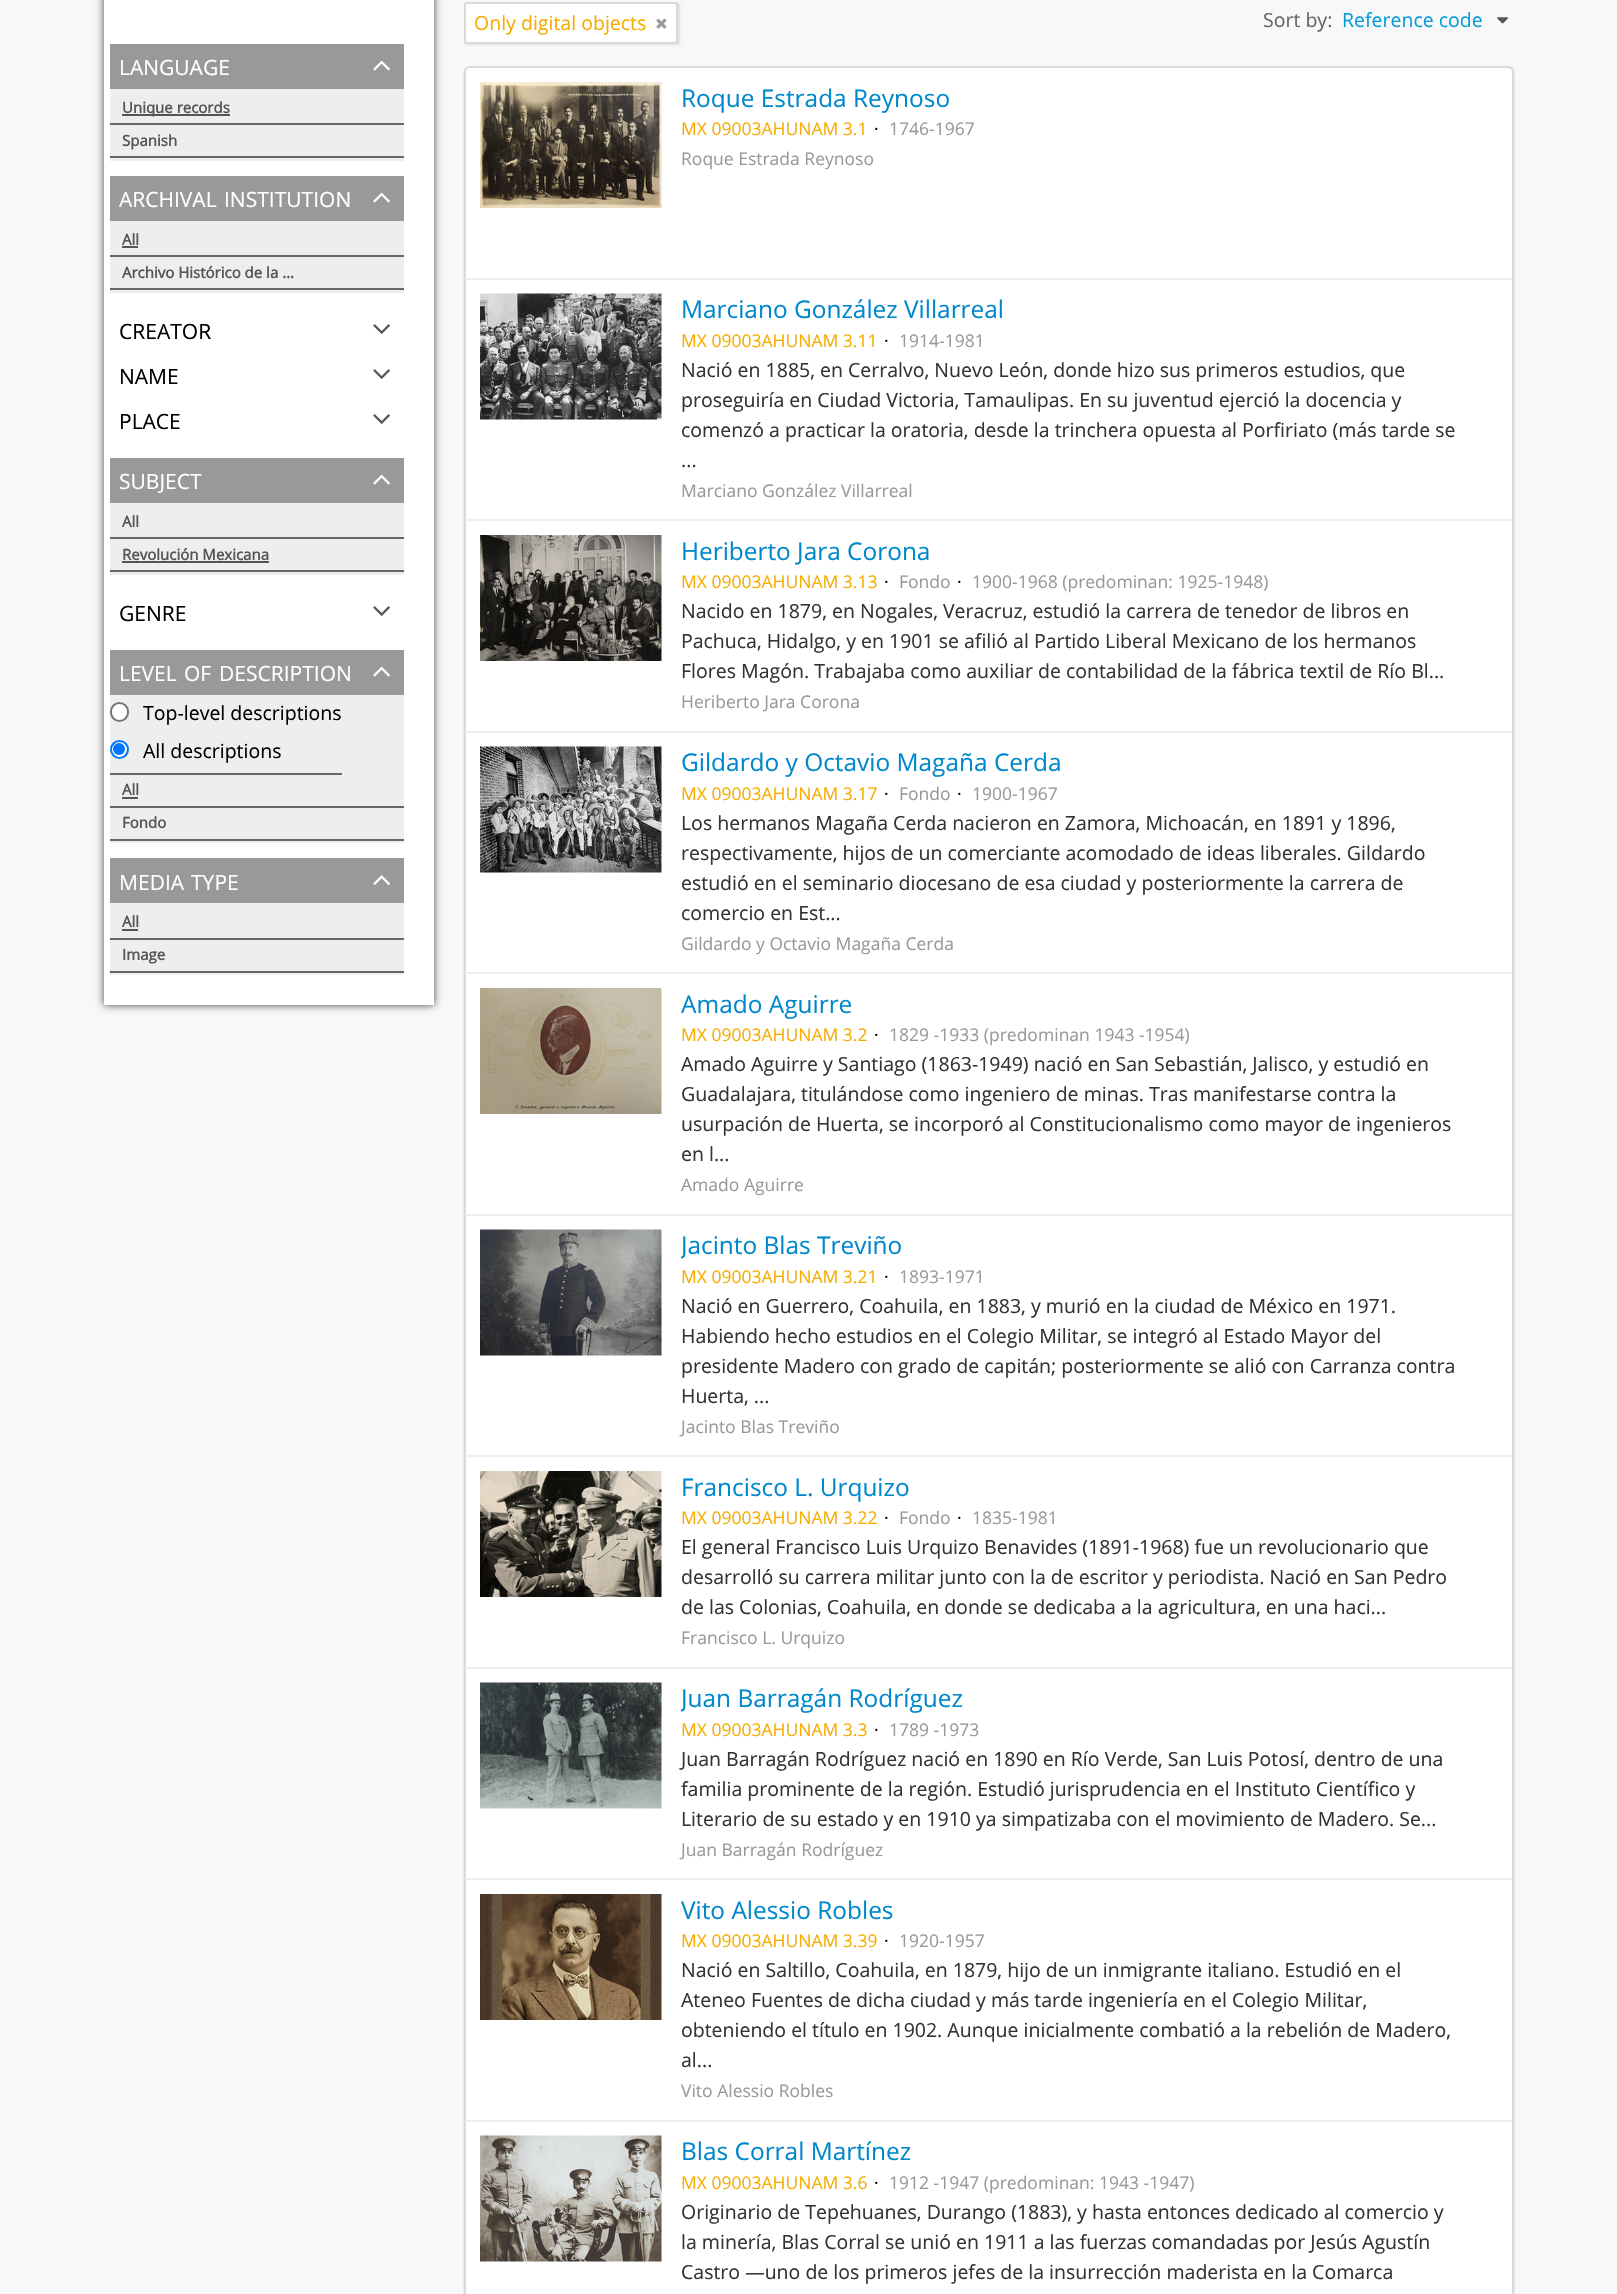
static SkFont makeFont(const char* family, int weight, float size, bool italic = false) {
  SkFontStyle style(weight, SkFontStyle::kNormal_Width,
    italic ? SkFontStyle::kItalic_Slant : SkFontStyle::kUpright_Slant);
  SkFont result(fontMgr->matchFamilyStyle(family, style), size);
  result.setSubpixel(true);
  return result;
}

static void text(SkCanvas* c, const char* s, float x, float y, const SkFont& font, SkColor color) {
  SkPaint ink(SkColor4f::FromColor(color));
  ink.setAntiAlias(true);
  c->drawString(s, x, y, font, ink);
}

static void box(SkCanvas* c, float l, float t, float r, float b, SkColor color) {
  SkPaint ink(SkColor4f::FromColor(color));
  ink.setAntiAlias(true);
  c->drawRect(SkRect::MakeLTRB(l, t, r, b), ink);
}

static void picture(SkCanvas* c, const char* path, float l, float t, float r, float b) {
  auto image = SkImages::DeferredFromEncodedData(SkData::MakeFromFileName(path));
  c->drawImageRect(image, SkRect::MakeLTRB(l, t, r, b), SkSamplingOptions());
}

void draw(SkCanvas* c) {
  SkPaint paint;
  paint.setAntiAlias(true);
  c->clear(0xfff8f8f8);
  paint.setColor(0xff444444);
  paint.setMaskFilter(SkMaskFilter::MakeBlur(kNormal_SkBlurStyle, 4));
  c->drawRect(SkRect::MakeLTRB(104, -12, 434, 1005), paint);
  paint.setMaskFilter(nullptr);
  box(c, 104, 0, 434, 1005, 0xffffffff);
  box(c, 110, 44, 404, 89, 0xff999999);
  SkFont face1 = makeFont("Open Sans", 400, 21);
  text(c, "LANGUAGE", 119, 75, face1, 0xffffffff);
  picture(c, "img_01.png", 373, 60, 390, 71);
  box(c, 110, 89, 404, 161, 0xffeeeeee);
  box(c, 110, 123, 404, 125, 0xff666666);
  box(c, 122, 114, 230, 116, 0xff555555);
  SkFont face2 = makeFont("Open Sans", 700, 15);
  text(c, "Unique records", 122, 113, face2, 0xff555555);
  box(c, 110, 156, 404, 158, 0xff666666);
  text(c, "Spanish", 122, 146, face2, 0xff555555);
  box(c, 110, 176, 404, 221, 0xff999999);
  text(c, "ARCHIVAL", 119, 207, face1, 0xffffffff);
  text(c, "INSTITUTION", 224, 207, face1, 0xffffffff);
  picture(c, "img_01.png", 373, 192, 390, 203);
  box(c, 110, 221, 404, 293, 0xffeeeeee);
  box(c, 110, 255, 404, 257, 0xff666666);
  text(c, "All", 122, 245, face2, 0xff555555);
  box(c, 122, 246, 138, 248, 0xff555555);
  box(c, 110, 288, 404, 290, 0xff666666);
  text(c, "Archivo Histórico de la …", 122, 278, face2, 0xff555555);
  text(c, "CREATOR", 119, 339, face1, 0xff000000);
  picture(c, "img_02.png", 373, 324, 390, 334);
  text(c, "NAME", 119, 384, face1, 0xff000000);
  picture(c, "img_02.png", 373, 369, 390, 379);
  text(c, "PLACE", 119, 429, face1, 0xff000000);
  picture(c, "img_02.png", 373, 414, 390, 424);
  box(c, 110, 458, 404, 503, 0xff999999);
  text(c, "SUBJECT", 119, 489, face1, 0xffffffff);
  picture(c, "img_01.png", 373, 474, 390, 485);
  box(c, 110, 503, 404, 575, 0xffeeeeee);
  box(c, 110, 537, 404, 539, 0xff666666);
  text(c, "All", 122, 527, face2, 0xff555555);
  box(c, 110, 570, 404, 572, 0xff666666);
  text(c, "Revolución Mexicana", 122, 560, face2, 0xff555555);
  box(c, 122, 561, 269, 563, 0xff555555);
  text(c, "GENRE", 119, 621, face1, 0xff000000);
  picture(c, "img_02.png", 373, 606, 390, 616);
  box(c, 110, 650, 404, 695, 0xff999999);
  text(c, "LEVEL", 119, 681, face1, 0xffffffff);
  text(c, "OF", 184, 681, face1, 0xffffffff);
  text(c, "DESCRIPTION", 219, 681, face1, 0xffffffff);
  picture(c, "img_01.png", 373, 666, 390, 677);
  box(c, 110, 695, 404, 843, 0xffeeeeee);
  box(c, 110, 773, 342, 775, 0xff666666);
  paint.setColor(0xffffffff);
  c->drawRoundRect(SkRect::MakeLTRB(111, 703, 128, 721), 8.5f, 8.5f, paint);
  paint.setStyle(SkPaint::kStroke_Style);
  paint.setStrokeWidth(2);
  paint.setColor(0xff767676);
  c->drawRoundRect(SkRect::MakeLTRB(111, 703, 128, 721), 8.5f, 8.5f, paint);
  SkFont face3 = makeFont("Open Sans", 400, 19.5f);
  text(c, "Top-level descriptions", 143, 720, face3, 0xff000000);
  paint.setStyle(SkPaint::kFill_Style);
  paint.setColor(0xffffffff);
  c->drawCircle(119.5f, 749.5f, 8.5f, paint);
  paint.setStyle(SkPaint::kStroke_Style);
  paint.setColor(0xff0075ff);
  c->drawCircle(119.5f, 749.5f, 8.5f, paint);
  paint.setStyle(SkPaint::kFill_Style);
  c->drawCircle(119, 749, 6, paint);
  text(c, "All descriptions", 143, 758, face3, 0xff000000);
  box(c, 110, 806, 404, 808, 0xff666666);
  text(c, "All", 122, 795, face2, 0xff555555);
  box(c, 122, 797, 138, 799, 0xff555555);
  box(c, 110, 839, 404, 841, 0xff666666);
  text(c, "Fondo", 122, 828, face2, 0xff555555);
  box(c, 110, 858, 404, 903, 0xff999999);
  text(c, "MEDIA", 119, 890, face1, 0xffffffff);
  text(c, "TYPE", 191, 890, face1, 0xffffffff);
  picture(c, "img_03.png", 373, 875, 390, 885);
  box(c, 110, 903, 404, 975, 0xffeeeeee);
  box(c, 110, 938, 404, 940, 0xff666666);
  text(c, "All", 122, 927, face2, 0xff555555);
  box(c, 122, 929, 138, 931, 0xff555555);
  box(c, 110, 971, 404, 973, 0xff666666);
  text(c, "Image", 122, 960, face2, 0xff555555);
  paint.setColor(0x1a000000);
  paint.setMaskFilter(SkMaskFilter::MakeBlur(kNormal_SkBlurStyle, 1));
  c->drawRoundRect(SkRect::MakeLTRB(465, 3, 680, 45), 3, 3, paint);
  paint.setMaskFilter(nullptr);
  paint.setColor(0xffffffff);
  c->drawRoundRect(SkRect::MakeLTRB(465, 3, 677, 43), 2, 2, paint);
  paint.setStyle(SkPaint::kStroke_Style);
  paint.setColor(0xffd9d9d9);
  c->drawRoundRect(SkRect::MakeLTRB(465, 3, 677, 43), 2, 2, paint);
  text(c, "Only digital objects", 474, 30, face3, 0xfff6ac00);
  picture(c, "img_04.png", 656, 18, 667, 29);
  text(c, "Sort by:", 1263, 27, face3, 0xff666666);
  text(c, "Reference code", 1342, 27, face3, 0xff049cdb);
  picture(c, "img_05.png", 1497, 17, 1509, 24);
  paint.setStyle(SkPaint::kFill_Style);
  paint.setColor(0x33000000);
  paint.setMaskFilter(SkMaskFilter::MakeBlur(kNormal_SkBlurStyle, 1));
  c->drawRoundRect(SkRect::MakeLTRB(464, 68, 1514, 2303), 6, 6, paint);
  paint.setMaskFilter(nullptr);
  paint.setColor(0xffffffff);
  c->drawRoundRect(SkRect::MakeLTRB(465, 67, 1513, 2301), 5, 5, paint);
  paint.setStyle(SkPaint::kStroke_Style);
  paint.setColor(0xffd9d9d9);
  c->drawRoundRect(SkRect::MakeLTRB(465, 67, 1513, 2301), 5, 5, paint);
  box(c, 465, 278, 1512, 280, 0xffeeeeee);
  picture(c, "img_06.png", 480, 82, 662, 208);
  SkFont face4 = makeFont("Open Sans", 400, 24.4f);
  text(c, "Roque Estrada Reynoso", 681, 107, face4, 0xff0088cc);
  SkFont face5 = makeFont("Open Sans", 400, 17.5f);
  text(c, "MX 09003AHUNAM 3.1", 681, 135, face5, 0xfff6ac00);
  text(c, "·", 874, 135, face5, 0xff000000);
  text(c, "1746-1967", 889, 135, face5, 0xff999999);
  text(c, "Roque Estrada Reynoso", 681, 165, face5, 0xff999999);
  box(c, 465, 519, 1512, 521, 0xffeeeeee);
  picture(c, "img_07.png", 480, 293, 662, 420);
  text(c, "Marciano González Villarreal", 681, 318, face4, 0xff0088cc);
  text(c, "MX 09003AHUNAM 3.11", 681, 347, face5, 0xfff6ac00);
  text(c, "·", 884, 347, face5, 0xff000000);
  text(c, "1914-1981", 899, 347, face5, 0xff999999);
  text(c, "Nació en 1885, en Cerralvo, Nuevo León, donde hizo sus primeros estudios, que", 681, 377, face3, 0xff333333);
  text(c, "proseguiría en Ciudad Victoria, Tamaulipas. En su juventud ejerció la docencia y", 681, 407, face3, 0xff333333);
  text(c, "comenzó a practicar la oratoria, desde la trinchera opuesta al Porfiriato (más tarde se", 681, 437, face3, 0xff333333);
  text(c, "...", 681, 467, face3, 0xff333333);
  text(c, "Marciano González Villarreal", 681, 497, face5, 0xff999999);
  box(c, 465, 731, 1512, 733, 0xffeeeeee);
  picture(c, "img_08.png", 480, 535, 662, 661);
  text(c, "Heriberto Jara Corona", 681, 560, face4, 0xff0088cc);
  text(c, "MX 09003AHUNAM 3.13", 681, 588, face5, 0xfff6ac00);
  text(c, "·", 884, 588, face5, 0xff000000);
  text(c, "Fondo", 899, 588, face5, 0xff999999);
  text(c, "·", 957, 588, face5, 0xff000000);
  text(c, "1900-1968 (predominan: 1925-1948)", 972, 588, face5, 0xff999999);
  text(c, "Nacido en 1879, en Nogales, Veracruz, estudió la carrera de tenedor de libros en", 681, 618, face3, 0xff333333);
  text(c, "Pachuca, Hidalgo, y en 1901 se afilió al Partido Liberal Mexicano de los hermanos", 681, 648, face3, 0xff333333);
  text(c, "Flores Magón. Trabajaba como auxiliar de contabilidad de la fábrica textil de Río Bl...", 681, 678, face3, 0xff333333);
  text(c, "Heriberto Jara Corona", 681, 708, face5, 0xff999999);
  box(c, 465, 972, 1512, 974, 0xffeeeeee);
  picture(c, "img_09.png", 480, 746, 662, 873);
  text(c, "Gildardo y Octavio Magaña Cerda", 681, 771, face4, 0xff0088cc);
  text(c, "MX 09003AHUNAM 3.17", 681, 800, face5, 0xfff6ac00);
  text(c, "·", 884, 800, face5, 0xff000000);
  text(c, "Fondo", 899, 800, face5, 0xff999999);
  text(c, "·", 957, 800, face5, 0xff000000);
  text(c, "1900-1967", 972, 800, face5, 0xff999999);
  text(c, "Los hermanos Magaña Cerda nacieron en Zamora, Michoacán, en 1891 y 1896,", 681, 830, face3, 0xff333333);
  text(c, "respectivamente, hijos de un comerciante acomodado de ideas liberales. Gildardo", 681, 860, face3, 0xff333333);
  text(c, "estudió en el seminario diocesano de esa ciudad y posteriormente la carrera de", 681, 890, face3, 0xff333333);
  text(c, "comercio en Est...", 681, 920, face3, 0xff333333);
  text(c, "Gildardo y Octavio Magaña Cerda", 681, 950, face5, 0xff999999);
  box(c, 465, 1214, 1512, 1216, 0xffeeeeee);
  picture(c, "img_10.png", 480, 988, 662, 1114);
  text(c, "Amado Aguirre", 681, 1013, face4, 0xff0088cc);
  text(c, "MX 09003AHUNAM 3.2", 681, 1041, face5, 0xfff6ac00);
  text(c, "·", 874, 1041, face5, 0xff000000);
  text(c, "1829 -1933 (predominan 1943 -1954)", 889, 1041, face5, 0xff999999);
  text(c, "Amado Aguirre y Santiago (1863-1949) nació en San Sebastián, Jalisco, y estudió en", 681, 1071, face3, 0xff333333);
  text(c, "Guadalajara, titulándose como ingeniero de minas. Tras manifestarse contra la", 681, 1101, face3, 0xff333333);
  text(c, "usurpación de Huerta, se incorporó al Constitucionalismo como mayor de ingenieros", 681, 1131, face3, 0xff333333);
  text(c, "en l...", 681, 1161, face3, 0xff333333);
  text(c, "Amado Aguirre", 681, 1191, face5, 0xff999999);
  box(c, 465, 1455, 1512, 1457, 0xffeeeeee);
  picture(c, "img_11.png", 480, 1229, 662, 1356);
  c->save();
  c->clipRect(SkRect::MakeLTRB(681, 1230, 1464, 1260));
  text(c, "Jacinto Blas Treviño", 681, 1254, face4, 0xff0088cc);
  c->restore();
  text(c, "MX 09003AHUNAM 3.21", 681, 1283, face5, 0xfff6ac00);
  text(c, "·", 884, 1283, face5, 0xff000000);
  text(c, "1893-1971", 899, 1283, face5, 0xff999999);
  text(c, "Nació en Guerrero, Coahuila, en 1883, y murió en la ciudad de México en 1971.", 681, 1313, face3, 0xff333333);
  text(c, "Habiendo hecho estudios en el Colegio Militar, se integró al Estado Mayor del", 681, 1343, face3, 0xff333333);
  text(c, "presidente Madero con grado de capitán; posteriormente se alió con Carranza contra", 681, 1373, face3, 0xff333333);
  text(c, "Huerta, ...", 681, 1403, face3, 0xff333333);
  text(c, "Jacinto Blas Treviño", 681, 1433, face5, 0xff999999);
  box(c, 465, 1667, 1512, 1669, 0xffeeeeee);
  picture(c, "img_12.png", 480, 1471, 662, 1597);
  text(c, "Francisco L. Urquizo", 681, 1496, face4, 0xff0088cc);
  text(c, "MX 09003AHUNAM 3.22", 681, 1524, face5, 0xfff6ac00);
  text(c, "·", 884, 1524, face5, 0xff000000);
  text(c, "Fondo", 899, 1524, face5, 0xff999999);
  text(c, "·", 957, 1524, face5, 0xff000000);
  text(c, "1835-1981", 972, 1524, face5, 0xff999999);
  text(c, "El general Francisco Luis Urquizo Benavides (1891-1968) fue un revolucionario que", 681, 1554, face3, 0xff333333);
  text(c, "desarrolló su carrera militar junto con la de escritor y periodista. Nació en San Pedro", 681, 1584, face3, 0xff333333);
  text(c, "de las Colonias, Coahuila, en donde se dedicaba a la agricultura, en una haci...", 681, 1614, face3, 0xff333333);
  text(c, "Francisco L. Urquizo", 681, 1644, face5, 0xff999999);
  box(c, 465, 1878, 1512, 1880, 0xffeeeeee);
  picture(c, "img_13.png", 480, 1682, 662, 1809);
  c->save();
  c->clipRect(SkRect::MakeLTRB(681, 1683, 1464, 1713));
  text(c, "Juan Barragán Rodríguez", 681, 1707, face4, 0xff0088cc);
  c->restore();
  text(c, "MX 09003AHUNAM 3.3", 681, 1736, face5, 0xfff6ac00);
  text(c, "·", 874, 1736, face5, 0xff000000);
  text(c, "1789 -1973", 889, 1736, face5, 0xff999999);
  text(c, "Juan Barragán Rodríguez nació en 1890 en Río Verde, San Luis Potosí, dentro de una", 681, 1766, face3, 0xff333333);
  text(c, "familia prominente de la región. Estudió jurisprudencia en el Instituto Científico y", 681, 1796, face3, 0xff333333);
  text(c, "Literario de su estado y en 1910 ya simpatizaba con el movimiento de Madero. Se...", 681, 1826, face3, 0xff333333);
  text(c, "Juan Barragán Rodríguez", 681, 1856, face5, 0xff999999);
  box(c, 465, 2120, 1512, 2122, 0xffeeeeee);
  picture(c, "img_14.png", 480, 1894, 662, 2020);
  text(c, "Vito Alessio Robles", 681, 1919, face4, 0xff0088cc);
  text(c, "MX 09003AHUNAM 3.39", 681, 1947, face5, 0xfff6ac00);
  text(c, "·", 884, 1947, face5, 0xff000000);
  text(c, "1920-1957", 899, 1947, face5, 0xff999999);
  text(c, "Nació en Saltillo, Coahuila, en 1879, hijo de un inmigrante italiano. Estudió en el", 681, 1977, face3, 0xff333333);
  text(c, "Ateneo Fuentes de dicha ciudad y más tarde ingeniería en el Colegio Militar,", 681, 2007, face3, 0xff333333);
  text(c, "obteniendo el título en 1902. Aunque inicialmente combatió a la rebelión de Madero,", 681, 2037, face3, 0xff333333);
  text(c, "al...", 681, 2067, face3, 0xff333333);
  text(c, "Vito Alessio Robles", 681, 2097, face5, 0xff999999);
  picture(c, "img_15.png", 480, 2135, 662, 2262);
  text(c, "Blas Corral Martínez", 681, 2160, face4, 0xff0088cc);
  text(c, "MX 09003AHUNAM 3.6", 681, 2189, face5, 0xfff6ac00);
  text(c, "·", 874, 2189, face5, 0xff000000);
  text(c, "1912 -1947 (predominan: 1943 -1947)", 889, 2189, face5, 0xff999999);
  text(c, "Originario de Tepehuanes, Durango (1883), y hasta entonces dedicado al comercio y", 681, 2219, face3, 0xff333333);
  text(c, "la minería, Blas Corral se unió en 1911 a las fuerzas comandadas por Jesús Agustín", 681, 2249, face3, 0xff333333);
  text(c, "Castro —uno de los primeros jefes de la insurrección maderista en la Comarca", 681, 2279, face3, 0xff333333);
}
